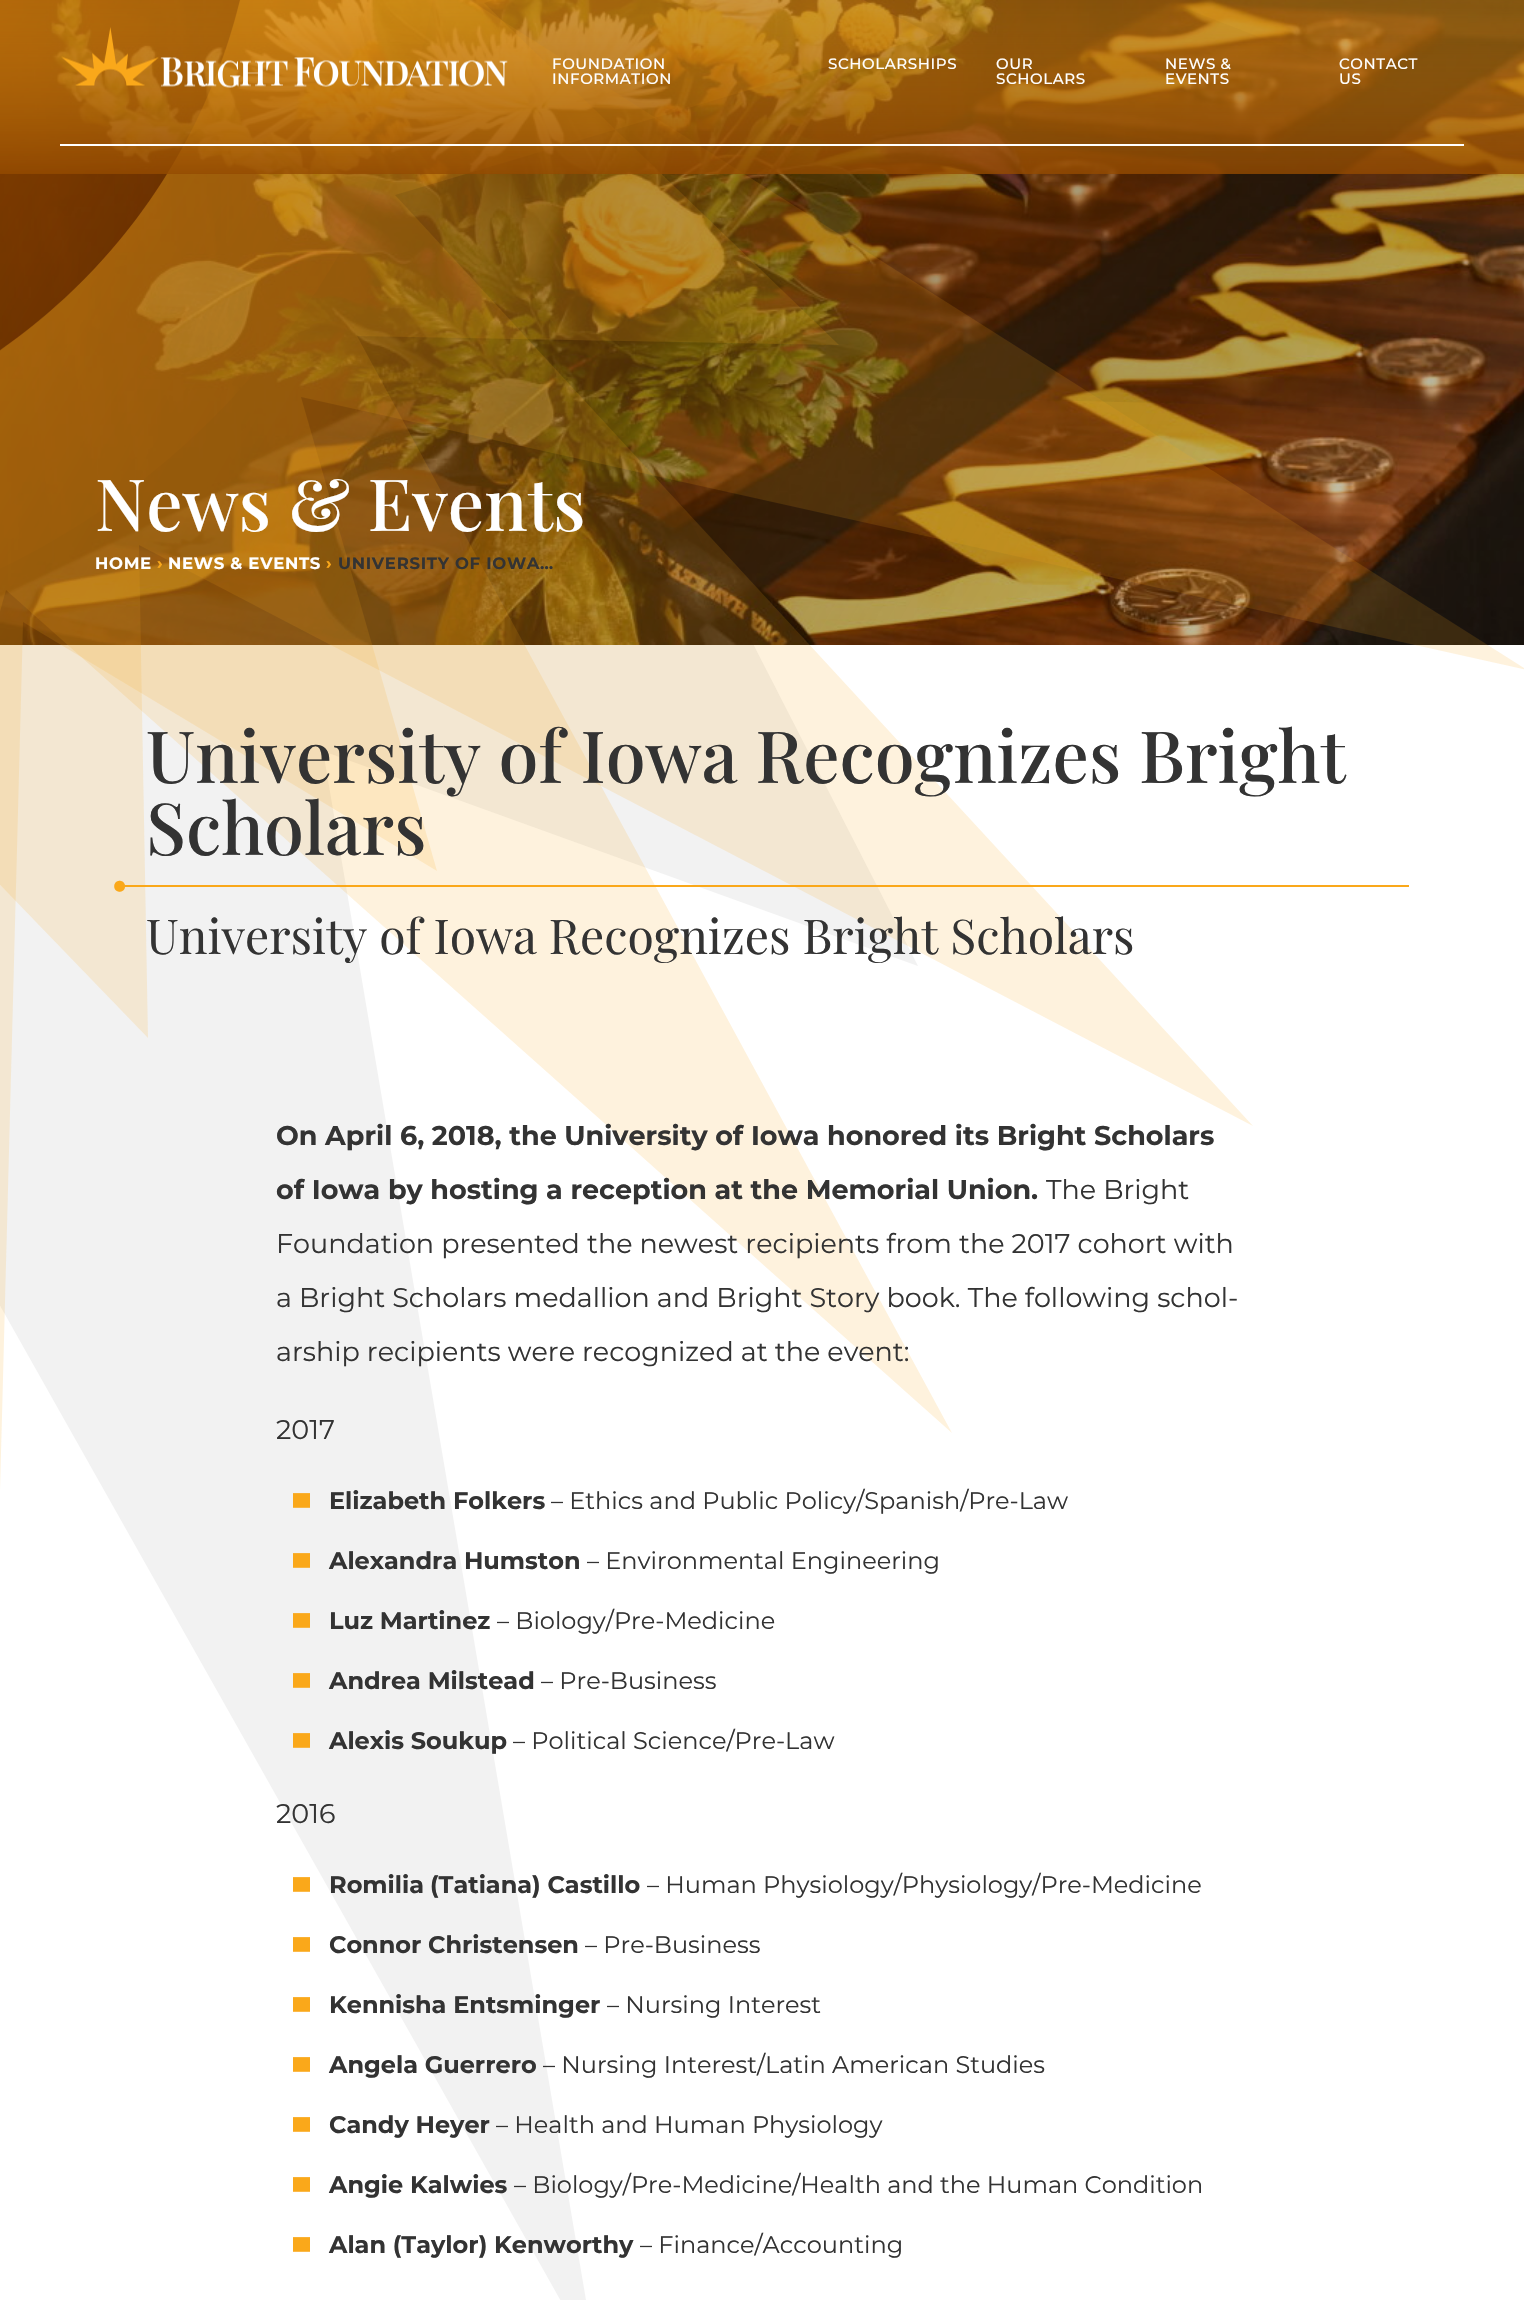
static SkFont makeFont(const char* family, int weight, float size, bool italic = false) {
  SkFontStyle style(weight, SkFontStyle::kNormal_Width,
    italic ? SkFontStyle::kItalic_Slant : SkFontStyle::kUpright_Slant);
  SkFont result(fontMgr->matchFamilyStyle(family, style), size);
  result.setSubpixel(true);
  return result;
}

static void text(SkCanvas* c, const char* s, float x, float y, const SkFont& font, SkColor color) {
  SkPaint ink(SkColor4f::FromColor(color));
  ink.setAntiAlias(true);
  c->drawString(s, x, y, font, ink);
}

static void spacedText(SkCanvas* c, const char* s, float x, float y, const SkFont& font, const SkPaint& ink, float letter, float word) {
  std::vector<SkGlyphID> glyphs(font.countText(s, strlen(s), SkTextEncoding::kUTF8));
  std::vector<float> xs(glyphs.size());
  font.textToGlyphs(s, strlen(s), SkTextEncoding::kUTF8, glyphs);
  font.getXPos(glyphs, xs, x);
  float extra = 0;
  for (size_t i = 0; i < glyphs.size(); i++) {
    xs[i] += extra;
    extra += letter + word * (glyphs[i] == font.unicharToGlyph(' '));
  }
  c->drawTextBlob(SkTextBlob::MakeFromPosHGlyphs(glyphs, xs, y, font), 0, 0, ink);
}

static void box(SkCanvas* c, float l, float t, float r, float b, SkColor color) {
  SkPaint ink(SkColor4f::FromColor(color));
  ink.setAntiAlias(true);
  c->drawRect(SkRect::MakeLTRB(l, t, r, b), ink);
}

static void picture(SkCanvas* c, const char* path, float l, float t, float r, float b) {
  auto image = SkImages::DeferredFromEncodedData(SkData::MakeFromFileName(path));
  c->drawImageRect(image, SkRect::MakeLTRB(l, t, r, b), SkSamplingOptions());
}

void draw(SkCanvas* c) {
  SkPaint paint;
  paint.setAntiAlias(true);
  c->clear(0xffffffff);
  picture(c, "img_02.png", 0, 0, 1524, 645);
  paint.setColor(0x0d000000);
  c->drawPath(SkPathBuilder().moveTo(918, 966).lineTo(623, 390).lineTo(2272, 430).lineTo(723, -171).lineTo(1265, -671).lineTo(514, -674).lineTo(1407, -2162).lineTo(66, -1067).lineTo(-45, -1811).lineTo(-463, -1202).lineTo(-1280, -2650).lineTo(-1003, -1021).lineTo(-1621, -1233).lineTo(-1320, -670).lineTo(-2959, -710).lineTo(-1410, -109).lineTo(-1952, 392).lineTo(-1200, 395).lineTo(-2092, 1879).lineTo(-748, 782).lineTo(-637, 1526).lineTo(-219, 917).lineTo(597, 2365).lineTo(323, 751).close().moveTo(253, 375).cubicTo(-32, 704, -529, 739, -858, 454).cubicTo(-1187, 170, -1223, -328, -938, -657).cubicTo(-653, -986, -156, -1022, 173, -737).cubicTo(502, -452, 538, 46, 253, 375).close().detach(), paint);
  paint.setColor(0x26faa81a);
  c->drawPath(SkPathBuilder().moveTo(839, 345).lineTo(484, 3).lineTo(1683, -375).lineTo(418, -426).lineTo(685, -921).lineTo(143, -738).lineTo(421, -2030).lineTo(-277, -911).lineTo(-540, -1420).lineTo(-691, -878).lineTo(-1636, -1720).lineTo(-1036, -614).lineTo(-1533, -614).lineTo(-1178, -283).lineTo(-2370, 92).lineTo(-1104, 144).lineTo(-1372, 638).lineTo(-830, 456).lineTo(-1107, 1745).lineTo(-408, 623).lineTo(-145, 1132).lineTo(6, 590).lineTo(952, 1433).lineTo(357, 336).close().moveTo(213, 83).cubicTo(89, 390, -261, 538, -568, 414).cubicTo(-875, 290, -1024, -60, -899, -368).cubicTo(-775, -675, -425, -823, -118, -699).cubicTo(189, -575, 338, -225, 213, 83).close().detach(), paint);
  c->drawPath(SkPathBuilder().moveTo(437, 871).lineTo(301, 397).lineTo(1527, 670).lineTo(457, -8).lineTo(937, -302).lineTo(375, -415).lineTo(1262, -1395).lineTo(98, -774).lineTo(125, -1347).lineTo(-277, -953).lineTo(-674, -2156).lineTo(-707, -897).lineTo(-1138, -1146).lineTo(-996, -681).lineTo(-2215, -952).lineTo(-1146, -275).lineTo(-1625, 19).lineTo(-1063, 132).lineTo(-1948, 1111).lineTo(-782, 489).lineTo(-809, 1060).lineTo(-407, 667).lineTo(-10, 1869).lineTo(23, 622).close().moveTo(26, 331).cubicTo(-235, 535, -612, 488, -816, 227).cubicTo(-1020, -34, -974, -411, -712, -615).cubicTo(-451, -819, -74, -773, 130, -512).cubicTo(334, -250, 288, 127, 26, 331).close().detach(), paint);
  c->drawPath(SkPathBuilder().moveTo(148, 1038).lineTo(139, 545).lineTo(1253, 1126).lineTo(395, 195).lineTo(934, 35).lineTo(421, -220).lineTo(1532, -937).lineTo(247, -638).lineTo(421, -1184).lineTo(-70, -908).lineTo(-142, -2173).lineTo(-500, -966).lineTo(-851, -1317).lineTo(-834, -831).lineTo(-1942, -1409).lineTo(-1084, -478).lineTo(-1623, -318).lineTo(-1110, -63).lineTo(-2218, 653).lineTo(-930, 354).lineTo(-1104, 899).lineTo(-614, 623).lineTo(-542, 1887).lineTo(-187, 691).close().moveTo(-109, 411).cubicTo(-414, 540, -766, 397, -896, 92).cubicTo(-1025, -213, -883, -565, -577, -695).cubicTo(-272, -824, 80, -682, 209, -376).cubicTo(339, -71, 196, 281, -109, 411).close().detach(), paint);
  {
    const SkColor colors[] = {0xcc944a00, 0x66faa81a};
    const float stops[] = {0, 1};
    const SkPoint ends[] = {{762, 174}, {762, 0}};
    paint.setShader(SkGradientShader::MakeLinear(ends, colors, stops, 2, SkTileMode::kClamp));
    paint.setAlpha(255);
  }
  c->drawRect(SkRect::MakeLTRB(0, 0, 1524, 174), paint);
  box(c, 60, 144, 1464, 146, 0xffffffff);
  picture(c, "img_01.png", 61, 27, 508, 88);
  SkFont face1 = makeFont("Montserrat", 500, 15);
  paint.setShader(nullptr);
  paint.setColor(0xffffffff);
  spacedText(c, "FOUNDATION", 552, 69, face1, paint, 0.6f, 0);
  spacedText(c, "INFORMATION", 552, 84, face1, paint, 0.6f, 0);
  spacedText(c, "SCHOLARSHIPS", 828, 69, face1, paint, 0.6f, 0);
  spacedText(c, "OUR", 996, 69, face1, paint, 0.6f, 0);
  spacedText(c, "SCHOLARS", 996, 84, face1, paint, 0.6f, 0);
  spacedText(c, "NEWS &", 1165, 69, face1, paint, 0.6f, 0);
  spacedText(c, "EVENTS", 1165, 84, face1, paint, 0.6f, 0);
  spacedText(c, "CONTACT", 1339, 69, face1, paint, 0.6f, 0);
  spacedText(c, "US", 1339, 84, face1, paint, 0.6f, 0);
  SkFont face2 = makeFont("Playfair Display", 500, 72);
  text(c, "News & Events", 95, 531, face2, 0xffffffff);
  SkFont face3 = makeFont("Montserrat", 700, 16.5f);
  spacedText(c, "HOME", 95, 569, face3, paint, 0.7f, 0);
  paint.setColor(0xfffaa81a);
  spacedText(c, "›", 157, 569, face3, paint, 0.7f, 0);
  paint.setColor(0xffffffff);
  spacedText(c, "NEWS & EVENTS", 168, 569, face3, paint, 0.7f, 0);
  paint.setColor(0xfffaa81a);
  spacedText(c, "›", 326, 569, face3, paint, 0.7f, 0);
  paint.setColor(0xff333333);
  spacedText(c, "UNIVERSITY OF IOWA…", 338, 569, face3, paint, 0.7f, 0);
  text(c, "University of Iowa Recognizes Bright", 146, 783, face2, 0xff333333);
  text(c, "Scholars", 146, 855, face2, 0xff333333);
  box(c, 116, 885, 1409, 887, 0xfffaa81a);
  SkFont face4 = makeFont("Montserrat", 400, 72);
  text(c, "•", 109, 906, face4, 0xfffaa81a);
  SkFont face5 = makeFont("Playfair Display", 400, 48);
  text(c, "University of Iowa Recognizes Bright Scholars", 146, 954, face5, 0xff333333);
  SkFont face6 = makeFont("Montserrat", 700, 27);
  text(c, "On April 6, 2018, the University of Iowa honored its Bright Scholars", 276, 1145, face6, 0xff333333);
  text(c, "of Iowa by hosting a reception at the Memorial Union.", 276, 1199, face6, 0xff333333);
  SkFont face7 = makeFont("Montserrat", 400, 27);
  text(c, "The Bright", 1046, 1199, face7, 0xff333333);
  text(c, "Foundation presented the newest recipients from the 2017 cohort with", 276, 1253, face7, 0xff333333);
  text(c, "a Bright Scholars medallion and Bright Story book. The following schol-", 276, 1307, face7, 0xff333333);
  text(c, "arship recipients were recognized at the event:", 276, 1361, face7, 0xff333333);
  text(c, "2017", 276, 1439, face7, 0xff333333);
  SkFont face8 = makeFont("Liberation Sans", 700, 24);
  text(c, "▀", 293, 1515, face8, 0xfffaa81a);
  SkFont face9 = makeFont("Montserrat", 700, 24);
  text(c, "Elizabeth Folkers", 329, 1509, face9, 0xff333333);
  SkFont face10 = makeFont("Montserrat", 400, 24);
  text(c, "– Ethics and Public Policy/Spanish/Pre-Law", 551, 1509, face10, 0xff333333);
  text(c, "▀", 293, 1575, face8, 0xfffaa81a);
  text(c, "Alexandra Humston", 329, 1569, face9, 0xff333333);
  text(c, "– Environmental Engineering", 587, 1569, face10, 0xff333333);
  text(c, "▀", 293, 1635, face8, 0xfffaa81a);
  text(c, "Luz Martinez", 329, 1629, face9, 0xff333333);
  text(c, "– Biology/Pre-Medicine", 497, 1629, face10, 0xff333333);
  text(c, "▀", 293, 1695, face8, 0xfffaa81a);
  text(c, "Andrea Milstead", 329, 1689, face9, 0xff333333);
  text(c, "– Pre-Business", 541, 1689, face10, 0xff333333);
  text(c, "▀", 293, 1755, face8, 0xfffaa81a);
  text(c, "Alexis Soukup", 329, 1749, face9, 0xff333333);
  text(c, "– Political Science/Pre-Law", 513, 1749, face10, 0xff333333);
  text(c, "2016", 276, 1823, face7, 0xff333333);
  text(c, "▀", 293, 1899, face8, 0xfffaa81a);
  text(c, "Romilia", 329, 1893, face9, 0xff333333);
  text(c, "(Tatiana) Castillo", 430, 1893, face9, 0xff333333);
  text(c, "– Human Physiology/Physiology/Pre-Medicine", 647, 1893, face10, 0xff333333);
  text(c, "▀", 293, 1959, face8, 0xfffaa81a);
  text(c, "Connor", 329, 1953, face9, 0xff333333);
  text(c, "Christensen", 428, 1953, face9, 0xff333333);
  text(c, "– Pre-Business", 585, 1953, face10, 0xff333333);
  text(c, "▀", 293, 2019, face8, 0xfffaa81a);
  text(c, "Kennisha Entsminger", 329, 2013, face9, 0xff333333);
  text(c, "– Nursing Interest", 607, 2013, face10, 0xff333333);
  text(c, "▀", 293, 2079, face8, 0xfffaa81a);
  text(c, "Angela Guerrero", 329, 2073, face9, 0xff333333);
  text(c, "– Nursing Interest/Latin American Studies", 543, 2073, face10, 0xff333333);
  text(c, "▀", 293, 2139, face8, 0xfffaa81a);
  text(c, "Candy Heyer", 329, 2133, face9, 0xff333333);
  text(c, "– Health and Human Physiology", 496, 2133, face10, 0xff333333);
  text(c, "▀", 293, 2199, face8, 0xfffaa81a);
  text(c, "Angie Kalwies", 329, 2193, face9, 0xff333333);
  text(c, "– Biology/Pre-Medicine/Health and the Human Condition", 514, 2193, face10, 0xff333333);
  text(c, "▀", 293, 2259, face8, 0xfffaa81a);
  text(c, "Alan (Taylor) Kenworthy", 329, 2253, face9, 0xff333333);
  text(c, "– Finance/Accounting", 640, 2253, face10, 0xff333333);
}
